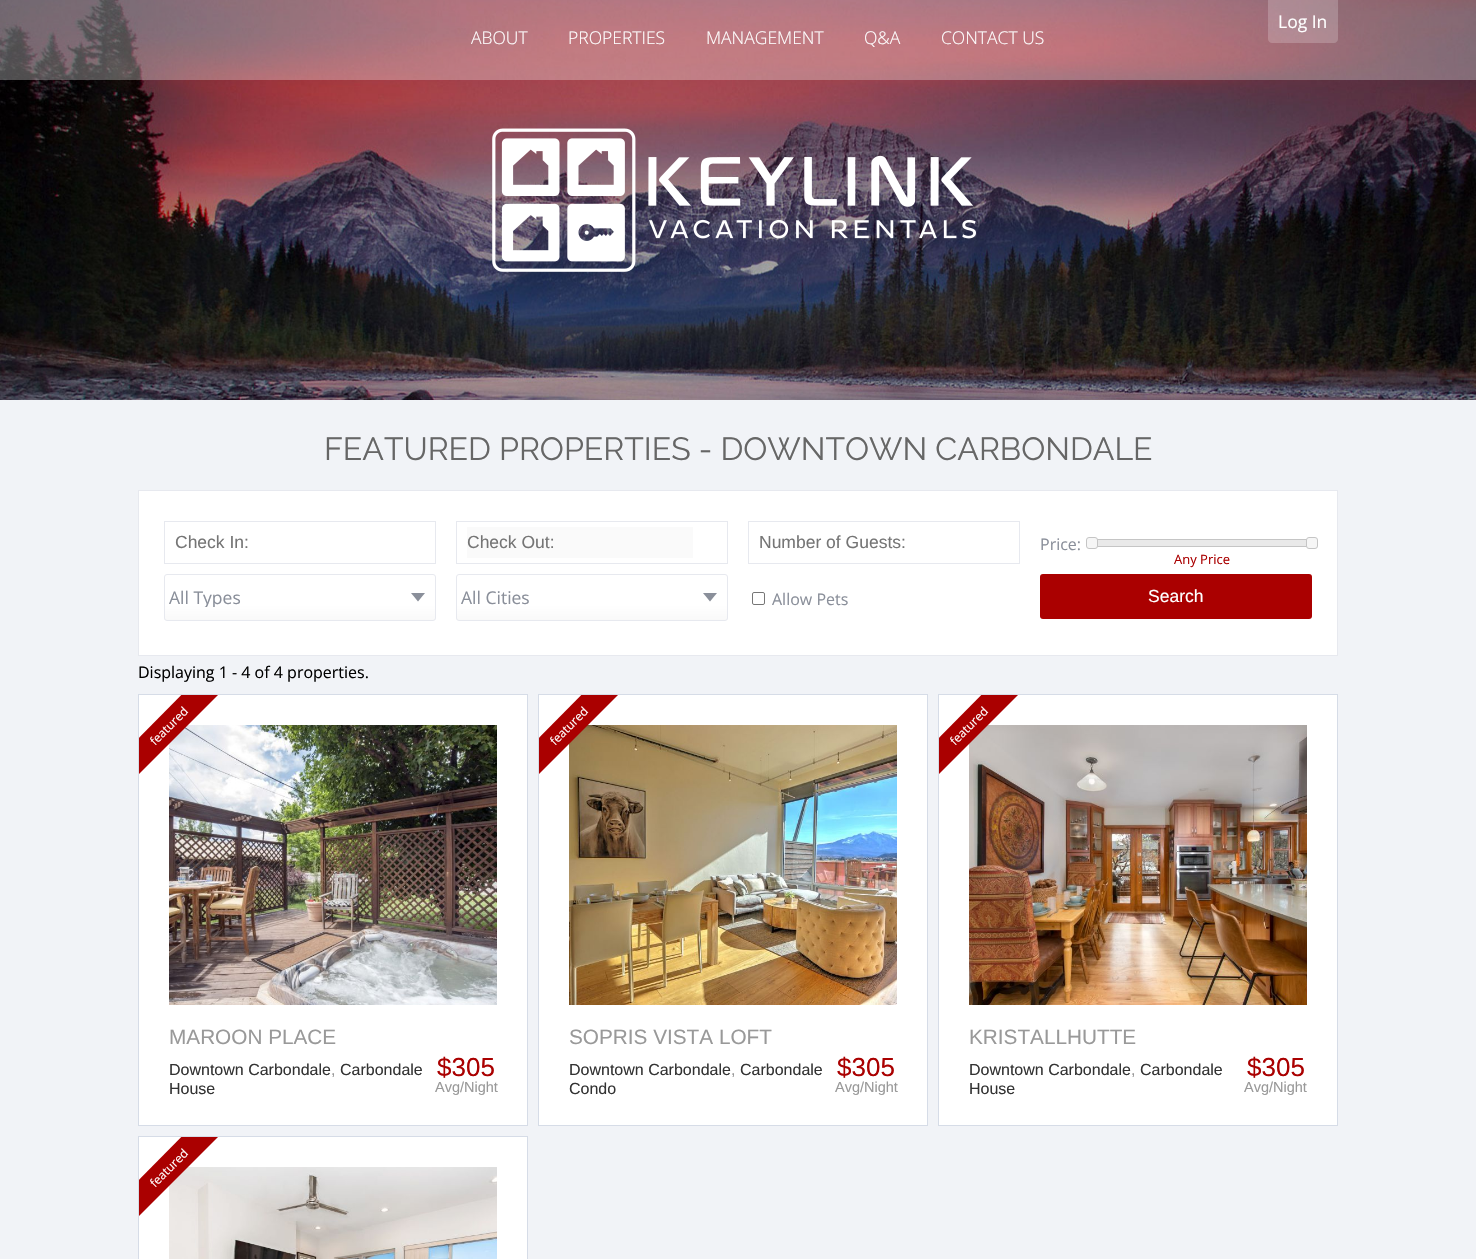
static SkFont makeFont(const char* family, int weight, float size, bool italic = false) {
  SkFontStyle style(weight, SkFontStyle::kNormal_Width,
    italic ? SkFontStyle::kItalic_Slant : SkFontStyle::kUpright_Slant);
  SkFont result(fontMgr->matchFamilyStyle(family, style), size);
  result.setSubpixel(true);
  return result;
}

static void text(SkCanvas* c, const char* s, float x, float y, const SkFont& font, SkColor color) {
  SkPaint ink(SkColor4f::FromColor(color));
  ink.setAntiAlias(true);
  c->drawString(s, x, y, font, ink);
}

static void box(SkCanvas* c, float l, float t, float r, float b, SkColor color) {
  SkPaint ink(SkColor4f::FromColor(color));
  ink.setAntiAlias(true);
  c->drawRect(SkRect::MakeLTRB(l, t, r, b), ink);
}

static void roundBox(SkCanvas* c, float l, float t, float r, float b, float radius, SkColor color) {
  SkPaint ink(SkColor4f::FromColor(color));
  ink.setAntiAlias(true);
  c->drawRoundRect(SkRect::MakeLTRB(l, t, r, b), radius, radius, ink);
}

static void picture(SkCanvas* c, const char* path, float l, float t, float r, float b) {
  auto image = SkImages::DeferredFromEncodedData(SkData::MakeFromFileName(path));
  c->drawImageRect(image, SkRect::MakeLTRB(l, t, r, b), SkSamplingOptions());
}

void draw(SkCanvas* c) {
  SkPaint paint;
  paint.setAntiAlias(true);
  c->clear(0xfff1f3f7);
  picture(c, "img_01.png", 0, 0, 1476, 400);
  picture(c, "img_02.png", 492, 128, 976, 272);
  box(c, 0, 0, 1476, 80, 0x4dffffff);
  paint.setColor(0x33ffffff);
  c->drawPath(SkPathBuilder().moveTo(1268, 0).lineTo(1338, 0).lineTo(1338, 39).cubicTo(1338, 41, 1336, 43, 1334, 43).lineTo(1272, 43).cubicTo(1270, 43, 1268, 41, 1268, 39).close().detach(), paint);
  SkFont face1 = makeFont("Open Sans", 400, 17.5f);
  text(c, "Log In", 1278, 28, face1, 0xffffffff);
  SkFont face2 = makeFont("Open Sans", 300, 17.5f);
  text(c, "ABOUT", 471, 44, face2, 0xffffffff);
  text(c, "PROPERTIES", 568, 44, face2, 0xffffffff);
  text(c, "MANAGEMENT", 706, 44, face2, 0xffffffff);
  text(c, "Q&A", 864, 44, face2, 0xffffffff);
  text(c, "CONTACT US", 941, 44, face2, 0xffffffff);
  SkFont face3 = makeFont("Raleway", 400, 32);
  text(c, "FEATURED PROPERTIES - DOWNTOWN CARBONDALE", 324, 460, face3, 0xff666666);
  paint.setColor(0xffffffff);
  c->drawRect(SkRect::MakeLTRB(138.5f, 490.5f, 1337.5f, 655.5f), paint);
  paint.setStyle(SkPaint::kStroke_Style);
  paint.setStrokeWidth(1);
  paint.setColor(0xffe7e9ef);
  c->drawRect(SkRect::MakeLTRB(138.5f, 490.5f, 1337.5f, 655.5f), paint);
  c->drawRect(SkRect::MakeLTRB(164.5f, 521.5f, 435.5f, 563.5f), paint);
  SkFont face4 = makeFont("Liberation Sans", 400, 17.5f);
  text(c, "Check In:", 175, 548, face4, 0xff757575);
  c->drawRect(SkRect::MakeLTRB(456.5f, 521.5f, 727.5f, 563.5f), paint);
  box(c, 467, 527, 693, 558, 0xfffafafa);
  text(c, "Check Out:", 467, 548, face4, 0xff757575);
  c->drawRect(SkRect::MakeLTRB(748.5f, 521.5f, 1019.5f, 563.5f), paint);
  text(c, "Number of Guests:", 759, 548, face4, 0xff757575);
  SkFont face5 = makeFont("Open Sans", 400, 16);
  text(c, "Price:", 1040, 550, face5, 0xff8a8f9a);
  paint.setColor(0xffc5c5c5);
  c->drawRect(SkRect::MakeLTRB(1090.5f, 539.5f, 1311.5f, 546.5f), paint);
  box(c, 1091, 540, 1311, 546, 0xffe9e9e9);
  paint.setStyle(SkPaint::kFill_Style);
  paint.setColor(0xfff6f6f6);
  c->drawRoundRect(SkRect::MakeLTRB(1086.5f, 537.5f, 1097.5f, 548.5f), 2.5f, 2.5f, paint);
  paint.setStyle(SkPaint::kStroke_Style);
  paint.setColor(0xffc5c5c5);
  c->drawRoundRect(SkRect::MakeLTRB(1086.5f, 537.5f, 1097.5f, 548.5f), 2.5f, 2.5f, paint);
  paint.setStyle(SkPaint::kFill_Style);
  paint.setColor(0xfff6f6f6);
  c->drawRoundRect(SkRect::MakeLTRB(1306.5f, 537.5f, 1317.5f, 548.5f), 2.5f, 2.5f, paint);
  paint.setStyle(SkPaint::kStroke_Style);
  paint.setColor(0xffc5c5c5);
  c->drawRoundRect(SkRect::MakeLTRB(1306.5f, 537.5f, 1317.5f, 548.5f), 2.5f, 2.5f, paint);
  SkFont face6 = makeFont("Open Sans", 400, 13);
  text(c, "Any Price", 1174, 564, face6, 0xffaa0000);
  c->save();
  c->clipPath(SkPathBuilder().moveTo(167, 574).lineTo(433, 574).cubicTo(434.5f, 574, 436, 575.5f, 436, 577).lineTo(436, 618).cubicTo(436, 619.5f, 434.5f, 621, 433, 621).lineTo(167, 621).cubicTo(165.5f, 621, 164, 619.5f, 164, 618).lineTo(164, 577).cubicTo(164, 575.5f, 165.5f, 574, 167, 574).close().detach(), true);
  paint.setStyle(SkPaint::kFill_Style);
  {
    const SkColor colors[] = {0xfff9f9f9, 0xffffffff};
    const float stops[] = {0, 0.33f};
    const SkPoint ends[] = {{300, 620}, {300, 575}};
    paint.setShader(SkGradientShader::MakeLinear(ends, colors, stops, 2, SkTileMode::kClamp));
    paint.setAlpha(255);
  }
  c->drawRect(SkRect::MakeLTRB(164, 575, 436, 620), paint);
  c->restore();
  paint.setStyle(SkPaint::kStroke_Style);
  paint.setShader(nullptr);
  paint.setColor(0xffe7e9ef);
  c->drawRoundRect(SkRect::MakeLTRB(164.5f, 574.5f, 435.5f, 620.5f), 2.5f, 2.5f, paint);
  c->save();
  c->clipRect(SkRect::MakeLTRB(169, 588, 413, 607));
  text(c, "All Types", 169, 604, face1, 0xff8a8f9a);
  c->restore();
  paint.setStyle(SkPaint::kFill_Style);
  paint.setColor(0xff8a8f9a);
  c->drawPath(SkPathBuilder().moveTo(425, 593).lineTo(411, 593).lineTo(418, 601.5f).close().detach(), paint);
  c->save();
  c->clipPath(SkPathBuilder().moveTo(459, 574).lineTo(725, 574).cubicTo(726.5f, 574, 728, 575.5f, 728, 577).lineTo(728, 618).cubicTo(728, 619.5f, 726.5f, 621, 725, 621).lineTo(459, 621).cubicTo(457.5f, 621, 456, 619.5f, 456, 618).lineTo(456, 577).cubicTo(456, 575.5f, 457.5f, 574, 459, 574).close().detach(), true);
  {
    const SkColor colors[] = {0xfff9f9f9, 0xffffffff};
    const float stops[] = {0, 0.33f};
    const SkPoint ends[] = {{592, 620}, {592, 575}};
    paint.setShader(SkGradientShader::MakeLinear(ends, colors, stops, 2, SkTileMode::kClamp));
    paint.setAlpha(255);
  }
  c->drawRect(SkRect::MakeLTRB(456, 575, 728, 620), paint);
  c->restore();
  paint.setStyle(SkPaint::kStroke_Style);
  paint.setShader(nullptr);
  paint.setColor(0xffe7e9ef);
  c->drawRoundRect(SkRect::MakeLTRB(456.5f, 574.5f, 727.5f, 620.5f), 2.5f, 2.5f, paint);
  text(c, "All Cities", 461, 604, face1, 0xff8a8f9a);
  paint.setStyle(SkPaint::kFill_Style);
  paint.setColor(0xff8a8f9a);
  c->drawPath(SkPathBuilder().moveTo(717, 593).lineTo(703, 593).lineTo(710, 601.5f).close().detach(), paint);
  paint.setStyle(SkPaint::kStroke_Style);
  paint.setColor(0xff767676);
  c->drawRoundRect(SkRect::MakeLTRB(752.5f, 592.5f, 764.5f, 604.5f), 1.5f, 1.5f, paint);
  text(c, "Allow Pets", 772, 605, face5, 0xff8a8f9a);
  roundBox(c, 1040, 574, 1312, 619, 3, 0xffaa0000);
  text(c, "Search", 1148, 602, face4, 0xffffffff);
  text(c, "Displaying 1 - 4 of 4 properties.", 138, 678, face5, 0xff000000);
  paint.setStyle(SkPaint::kFill_Style);
  paint.setColor(0xffffffff);
  c->drawRect(SkRect::MakeLTRB(138.5f, 694.5f, 527.5f, 1125.5f), paint);
  paint.setStyle(SkPaint::kStroke_Style);
  paint.setColor(0xffd6dce7);
  c->drawRect(SkRect::MakeLTRB(138.5f, 694.5f, 527.5f, 1125.5f), paint);
  picture(c, "img_03.png", 169, 725, 497, 1005);
  c->save();
  c->clipRect(SkRect::MakeLTRB(139, 695, 527, 1125));
  paint.setStyle(SkPaint::kFill_Style);
  paint.setColor(0xffaa0000);
  c->drawPath(SkPathBuilder().moveTo(110, 767).lineTo(210, 666).lineTo(228, 685).lineTo(128, 785).close().detach(), paint);
  c->restore();
  SkFont face7 = makeFont("Open Sans", 400, 12);
  c->save();
  c->rotate(-45, 155, 746);
  text(c, "featured", 155, 746, face7, 0xffffffff);
  c->restore();
  SkFont face8 = makeFont("Liberation Sans", 400, 20.75f);
  text(c, "MAROON PLACE", 169, 1044, face8, 0xff999999);
  SkFont face9 = makeFont("Liberation Sans", 400, 16);
  text(c, "Downtown Carbondale", 169, 1075, face9, 0xff333333);
  text(c, ",", 331, 1075, face9, 0xff999999);
  text(c, "Carbondale", 340, 1075, face9, 0xff333333);
  SkFont face10 = makeFont("Liberation Sans", 400, 26);
  text(c, "$305", 437, 1076, face10, 0xffaa0000);
  SkFont face11 = makeFont("Liberation Sans", 400, 14.5f);
  text(c, "Avg/Night", 435, 1092, face11, 0xff999999);
  text(c, "House", 169, 1094, face9, 0xff333333);
  paint.setColor(0xffffffff);
  c->drawRect(SkRect::MakeLTRB(538.5f, 694.5f, 927.5f, 1125.5f), paint);
  paint.setStyle(SkPaint::kStroke_Style);
  paint.setColor(0xffd6dce7);
  c->drawRect(SkRect::MakeLTRB(538.5f, 694.5f, 927.5f, 1125.5f), paint);
  picture(c, "img_04.png", 569, 725, 897, 1005);
  c->save();
  c->clipRect(SkRect::MakeLTRB(539, 695, 927, 1125));
  paint.setStyle(SkPaint::kFill_Style);
  paint.setColor(0xffaa0000);
  c->drawPath(SkPathBuilder().moveTo(510, 767).lineTo(610, 666).lineTo(628, 685).lineTo(528, 785).close().detach(), paint);
  c->restore();
  c->save();
  c->rotate(-45, 555, 746);
  text(c, "featured", 555, 746, face7, 0xffffffff);
  c->restore();
  text(c, "SOPRIS VISTA LOFT", 569, 1044, face8, 0xff999999);
  text(c, "Downtown Carbondale", 569, 1075, face9, 0xff333333);
  text(c, ",", 731, 1075, face9, 0xff999999);
  text(c, "Carbondale", 740, 1075, face9, 0xff333333);
  text(c, "$305", 837, 1076, face10, 0xffaa0000);
  text(c, "Avg/Night", 835, 1092, face11, 0xff999999);
  text(c, "Condo", 569, 1094, face9, 0xff333333);
  paint.setColor(0xffffffff);
  c->drawRect(SkRect::MakeLTRB(938.5f, 694.5f, 1337.5f, 1125.5f), paint);
  paint.setStyle(SkPaint::kStroke_Style);
  paint.setColor(0xffd6dce7);
  c->drawRect(SkRect::MakeLTRB(938.5f, 694.5f, 1337.5f, 1125.5f), paint);
  picture(c, "img_05.png", 969, 725, 1307, 1005);
  c->save();
  c->clipRect(SkRect::MakeLTRB(939, 695, 1337, 1125));
  paint.setStyle(SkPaint::kFill_Style);
  paint.setColor(0xffaa0000);
  c->drawPath(SkPathBuilder().moveTo(910, 767).lineTo(1010, 666).lineTo(1028, 685).lineTo(928, 785).close().detach(), paint);
  c->restore();
  c->save();
  c->rotate(-45, 955, 746);
  text(c, "featured", 955, 746, face7, 0xffffffff);
  c->restore();
  text(c, "KRISTALLHUTTE", 969, 1044, face8, 0xff999999);
  text(c, "Downtown Carbondale", 969, 1075, face9, 0xff333333);
  text(c, ",", 1131, 1075, face9, 0xff999999);
  text(c, "Carbondale", 1140, 1075, face9, 0xff333333);
  text(c, "$305", 1247, 1076, face10, 0xffaa0000);
  text(c, "Avg/Night", 1244, 1092, face11, 0xff999999);
  text(c, "House", 969, 1094, face9, 0xff333333);
  paint.setColor(0xffffffff);
  c->drawRect(SkRect::MakeLTRB(138.5f, 1136.5f, 527.5f, 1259.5f), paint);
  paint.setStyle(SkPaint::kStroke_Style);
  paint.setColor(0xffd6dce7);
  c->drawRect(SkRect::MakeLTRB(138.5f, 1136.5f, 527.5f, 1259.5f), paint);
  picture(c, "img_06.png", 169, 1167, 497, 1259);
  c->save();
  c->clipRect(SkRect::MakeLTRB(139, 1137, 527, 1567));
  paint.setStyle(SkPaint::kFill_Style);
  paint.setColor(0xffaa0000);
  c->drawPath(SkPathBuilder().moveTo(110, 1209).lineTo(210, 1108).lineTo(228, 1127).lineTo(128, 1227).close().detach(), paint);
  c->restore();
  c->save();
  c->rotate(-45, 155, 1188);
  text(c, "featured", 155, 1188, face7, 0xffffffff);
  c->restore();
}
